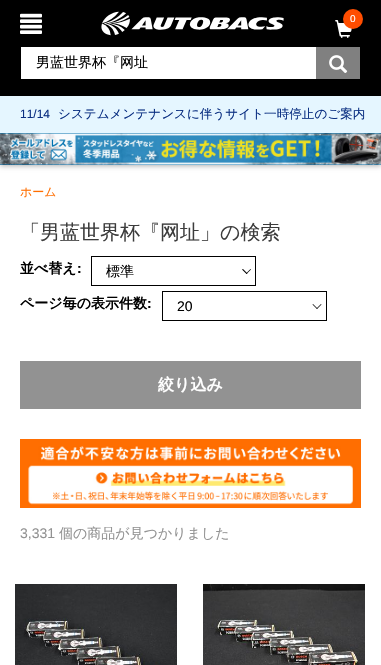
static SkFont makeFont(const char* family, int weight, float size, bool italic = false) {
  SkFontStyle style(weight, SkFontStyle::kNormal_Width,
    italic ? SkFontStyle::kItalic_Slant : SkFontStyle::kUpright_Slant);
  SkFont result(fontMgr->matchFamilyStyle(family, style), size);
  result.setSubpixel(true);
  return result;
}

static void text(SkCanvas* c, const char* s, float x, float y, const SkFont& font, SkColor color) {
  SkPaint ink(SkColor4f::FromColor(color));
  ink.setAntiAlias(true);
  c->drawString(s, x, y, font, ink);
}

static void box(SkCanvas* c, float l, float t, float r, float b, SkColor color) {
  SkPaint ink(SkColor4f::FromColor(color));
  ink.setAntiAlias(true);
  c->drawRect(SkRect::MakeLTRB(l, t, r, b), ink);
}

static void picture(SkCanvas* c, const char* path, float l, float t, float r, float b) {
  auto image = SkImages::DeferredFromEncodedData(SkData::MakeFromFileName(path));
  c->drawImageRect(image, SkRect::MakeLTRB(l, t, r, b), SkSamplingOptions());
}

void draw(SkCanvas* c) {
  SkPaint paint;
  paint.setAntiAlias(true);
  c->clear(0xffffffff);
  box(c, 0, 0, 381, 96, 0xff000000);
  picture(c, "img_01.png", 20, 13, 42, 34);
  picture(c, "img_02.png", 101, 11, 284, 36);
  picture(c, "img_03.png", 335, 20, 352, 38);
  paint.setColor(0xffff4d00);
  c->drawCircle(353, 19, 10, paint);
  SkFont face1 = makeFont("Liberation Sans", 400, 10);
  text(c, "0", 350, 22, face1, 0xffffffff);
  box(c, 21, 47, 316, 79, 0xffffffff);
  SkFont face2 = makeFont("WenQuanYi Zen Hei", 500, 14);
  text(c, "男蓝世界杯『网址", 36, 67, face2, 0xff000000);
  box(c, 316, 47, 360, 79, 0xff808080);
  picture(c, "img_04.png", 329, 55, 348, 73);
  paint.setColor(0x4d000000);
  paint.setMaskFilter(SkMaskFilter::MakeBlur(kNormal_SkBlurStyle, 2.5f));
  c->drawRect(SkRect::MakeLTRB(0, 97, 381, 166), paint);
  paint.setMaskFilter(nullptr);
  box(c, 0, 96, 381, 133, 0xffe5f6ff);
  SkFont face3 = makeFont("Liberation Sans", 400, 12);
  text(c, "11/14", 20, 118, face3, 0xff0a2f82);
  SkFont face4 = makeFont("WenQuanYi Zen Hei", 500, 12.6f);
  text(c, "システムメンテナンスに伴うサイト一時停止のご案内", 58, 118, face4, 0xff0a2f82);
  picture(c, "img_05.png", 0, 133, 381, 165);
  SkFont face5 = makeFont("WenQuanYi Zen Hei", 500, 12);
  text(c, "ホーム", 20, 196, face5, 0xffff6e00);
  SkFont face6 = makeFont("WenQuanYi Zen Hei", 500, 20);
  text(c, "「男蓝世界杯『网址」の検索", 20, 239, face6, 0xff3c3c3c);
  SkFont face7 = makeFont("WenQuanYi Zen Hei", 700, 14);
  text(c, "並べ替え", 20, 273, face7, 0xff000000);
  SkFont face8 = makeFont("Liberation Sans", 700, 14);
  text(c, ":", 77, 273, face8, 0xff000000);
  paint.setStyle(SkPaint::kStroke_Style);
  paint.setStrokeWidth(1);
  paint.setColor(0xff000000);
  c->drawRect(SkRect::MakeLTRB(91.5f, 256.5f, 255.5f, 285.5f), paint);
  text(c, "標準", 106, 276, face2, 0xff000000);
  paint.setStyle(SkPaint::kFill_Style);
  c->drawPath(SkPathBuilder().moveTo(251, 269.5f).lineTo(246.5f, 274).lineTo(246, 273.5f).lineTo(250.5f, 269).close().detach(), paint);
  c->drawPath(SkPathBuilder().moveTo(247.5f, 273.5f).lineTo(246.5f, 274).lineTo(242, 269.5f).lineTo(243, 269).close().detach(), paint);
  text(c, "ページ毎の表示件数", 20, 308, face7, 0xff000000);
  text(c, ":", 147, 308, face8, 0xff000000);
  paint.setStyle(SkPaint::kStroke_Style);
  c->drawRect(SkRect::MakeLTRB(162.5f, 291.5f, 326.5f, 320.5f), paint);
  SkFont face9 = makeFont("Liberation Sans", 400, 14);
  text(c, "20", 177, 311, face9, 0xff000000);
  paint.setStyle(SkPaint::kFill_Style);
  c->drawPath(SkPathBuilder().moveTo(321.5f, 304.5f).lineTo(317, 309).lineTo(316.5f, 308.5f).lineTo(321, 304).close().detach(), paint);
  c->drawPath(SkPathBuilder().moveTo(317.5f, 308.5f).lineTo(317, 309).lineTo(312.5f, 304.5f).lineTo(313, 304).close().detach(), paint);
  box(c, 20, 361, 361, 409, 0xff929292);
  SkFont face10 = makeFont("WenQuanYi Zen Hei", 700, 16);
  text(c, "絞り込み", 158, 390, face10, 0xffffffff);
  picture(c, "img_06.png", 20, 439, 361, 508);
  text(c, "3,331", 20, 538, face9, 0xff929292);
  text(c, "個の商品が見つかりました", 59, 538, face2, 0xff929292);
  picture(c, "img_07.png", 15, 584, 177, 665);
  picture(c, "img_08.png", 203, 584, 365, 665);
}
